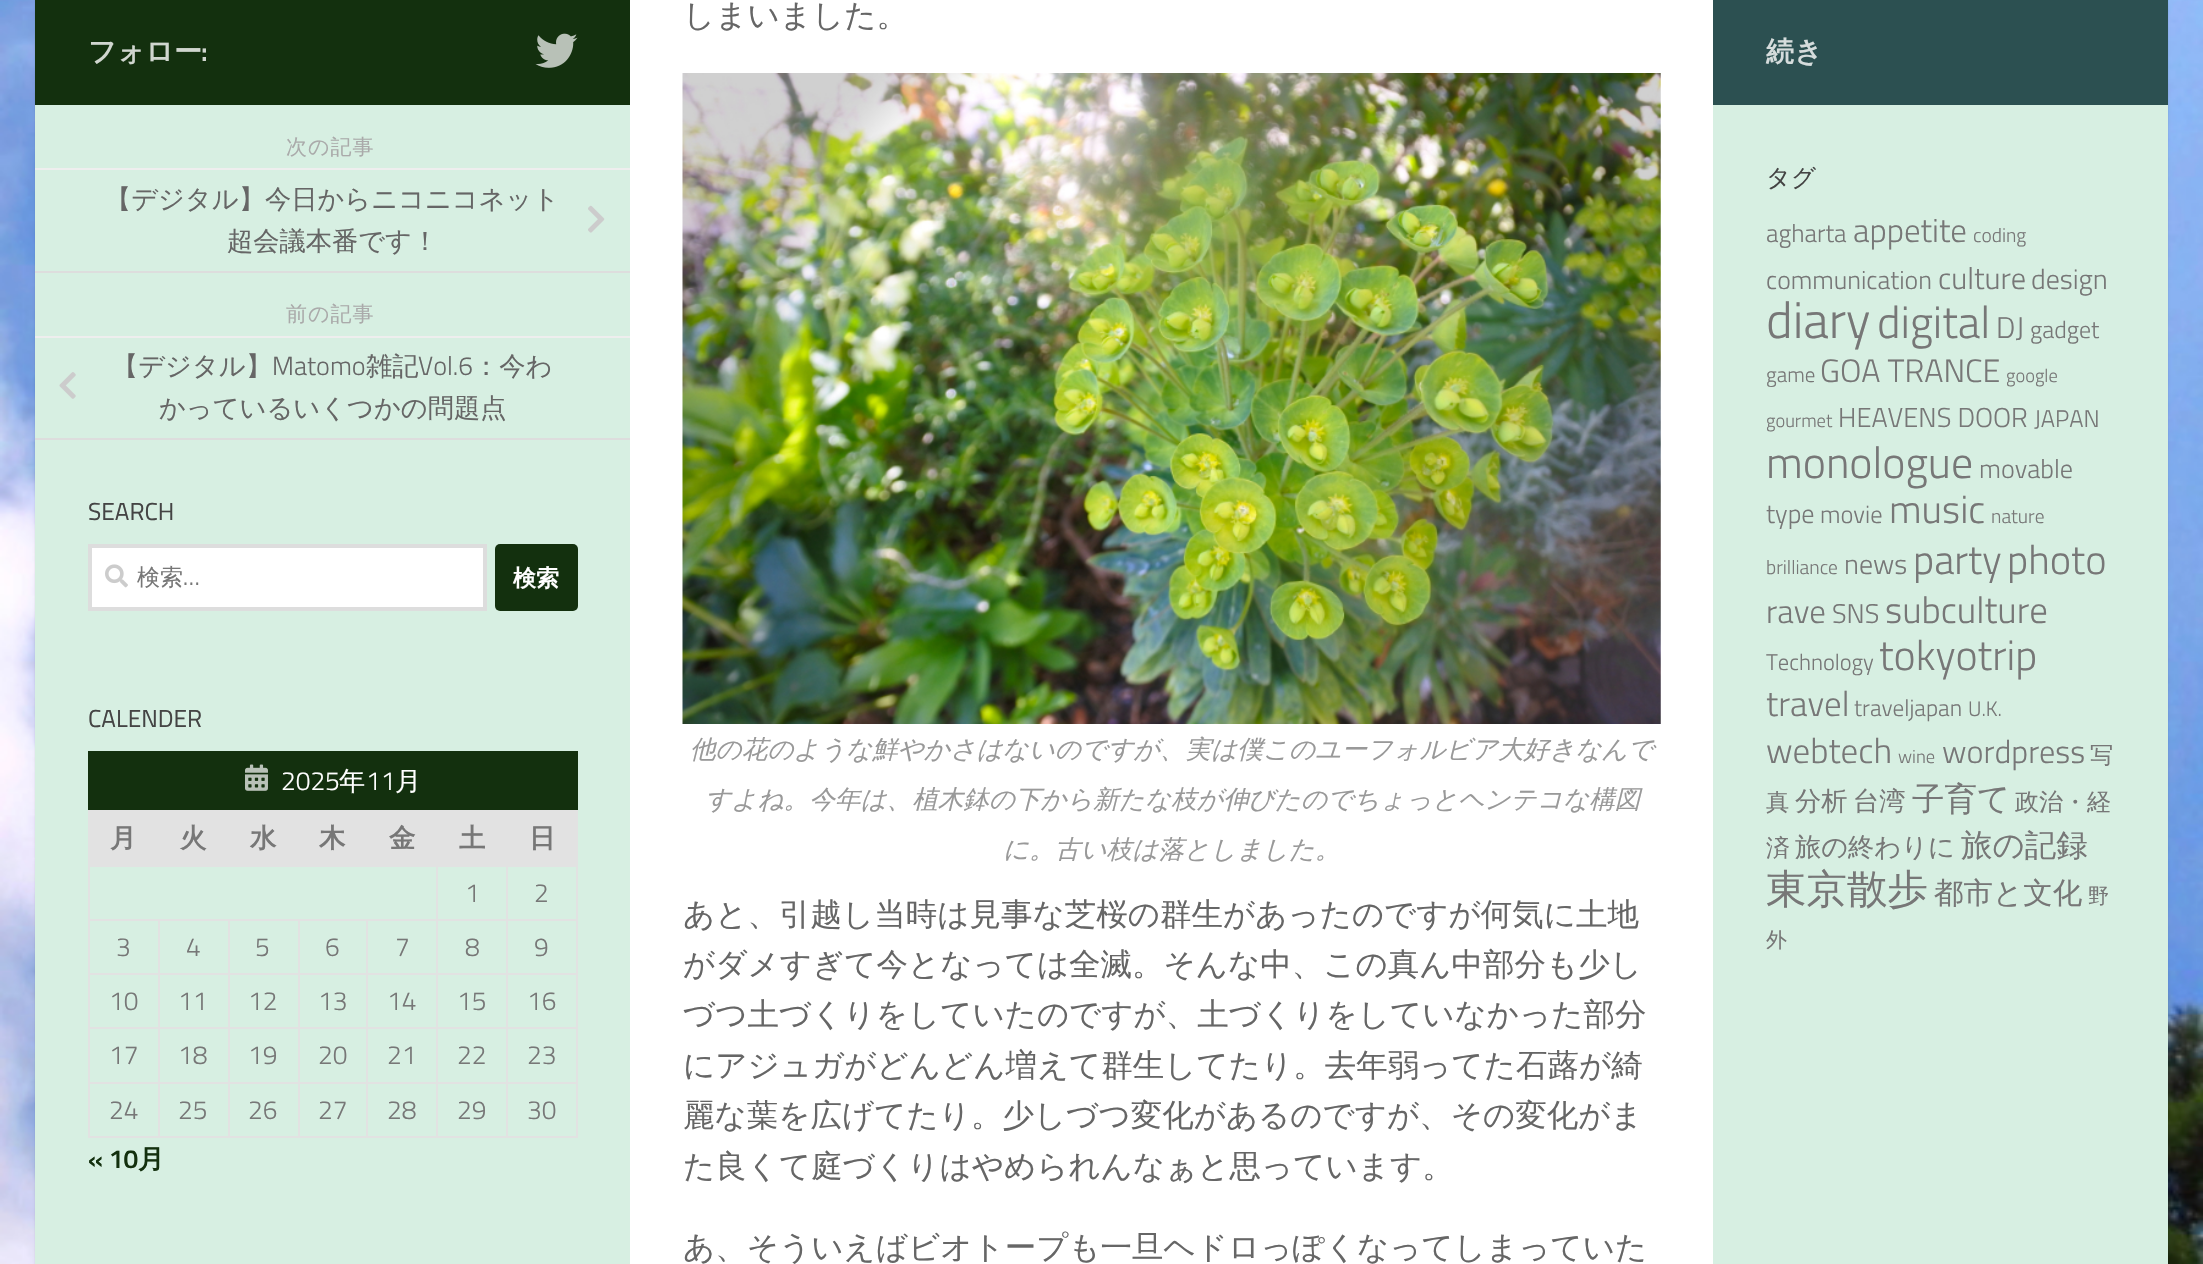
static SkFont makeFont(const char* family, int weight, float size, bool italic = false) {
  SkFontStyle style(weight, SkFontStyle::kNormal_Width,
    italic ? SkFontStyle::kItalic_Slant : SkFontStyle::kUpright_Slant);
  SkFont result(fontMgr->matchFamilyStyle(family, style), size);
  result.setSubpixel(true);
  return result;
}

static void text(SkCanvas* c, const char* s, float x, float y, const SkFont& font, SkColor color) {
  SkPaint ink(SkColor4f::FromColor(color));
  ink.setAntiAlias(true);
  c->drawString(s, x, y, font, ink);
}

static void spacedText(SkCanvas* c, const char* s, float x, float y, const SkFont& font, const SkPaint& ink, float letter, float word) {
  std::vector<SkGlyphID> glyphs(font.countText(s, strlen(s), SkTextEncoding::kUTF8));
  std::vector<float> xs(glyphs.size());
  font.textToGlyphs(s, strlen(s), SkTextEncoding::kUTF8, glyphs);
  font.getXPos(glyphs, xs, x);
  float extra = 0;
  for (size_t i = 0; i < glyphs.size(); i++) {
    xs[i] += extra;
    extra += letter + word * (glyphs[i] == font.unicharToGlyph(' '));
  }
  c->drawTextBlob(SkTextBlob::MakeFromPosHGlyphs(glyphs, xs, y, font), 0, 0, ink);
}

static void box(SkCanvas* c, float l, float t, float r, float b, SkColor color) {
  SkPaint ink(SkColor4f::FromColor(color));
  ink.setAntiAlias(true);
  c->drawRect(SkRect::MakeLTRB(l, t, r, b), ink);
}

static void roundBox(SkCanvas* c, float l, float t, float r, float b, float radius, SkColor color) {
  SkPaint ink(SkColor4f::FromColor(color));
  ink.setAntiAlias(true);
  c->drawRoundRect(SkRect::MakeLTRB(l, t, r, b), radius, radius, ink);
}

static void picture(SkCanvas* c, const char* path, float l, float t, float r, float b) {
  auto image = SkImages::DeferredFromEncodedData(SkData::MakeFromFileName(path));
  c->drawImageRect(image, SkRect::MakeLTRB(l, t, r, b), SkSamplingOptions());
}

void draw(SkCanvas* c) {
  SkPaint paint;
  paint.setAntiAlias(true);
  c->clear(0xffffffff);
  picture(c, "img_01.png", 0, 0, 2203, 1264);
  paint.setColor(0x1a000000);
  paint.setMaskFilter(SkMaskFilter::MakeBlur(kNormal_SkBlurStyle, 1));
  c->drawRect(SkRect::MakeLTRB(35, -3, 2168, 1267), paint);
  paint.setMaskFilter(nullptr);
  box(c, 630, 0, 1713, 1264, 0xffffffff);
  box(c, 35, 0, 630, 105, 0xff13300e);
  SkFont face1 = makeFont("WenQuanYi Zen Hei", 700, 28);
  text(c, "フォロー", 88, 61, face1, 0xffd0d6cf);
  SkFont face2 = makeFont("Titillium", 600, 28);
  text(c, ":", 201, 61, face2, 0xffd0d6cf);
  picture(c, "img_02.png", 535, 33, 578, 68);
  box(c, 35, 105, 630, 1264, 0xffd7efe2);
  SkFont face3 = makeFont("WenQuanYi Zen Hei", 500, 21);
  paint.setColor(0xffaaaaaa);
  spacedText(c, "次の記事", 286, 154, face3, paint, 1, 0);
  box(c, 35, 168, 630, 170, 0xffeeeeee);
  box(c, 35, 271, 630, 273, 0xffdddddd);
  SkFont face4 = makeFont("WenQuanYi Zen Hei", 500, 26.25f);
  text(c, "【デジタル】今日からニコニコネット", 105, 208, face4, 0xff666666);
  picture(c, "img_03.png", 588, 205, 605, 233);
  text(c, "超会議本番です！", 227, 250, face4, 0xff666666);
  spacedText(c, "前の記事", 286, 321, face3, paint, 1, 0);
  box(c, 35, 336, 630, 338, 0xffeeeeee);
  box(c, 35, 438, 630, 440, 0xffdddddd);
  text(c, "【デジタル】", 112, 375, face4, 0xff666666);
  SkFont face5 = makeFont("Titillium", 300, 26.25f);
  text(c, "Matomo", 272, 375, face5, 0xff666666);
  text(c, "雑記", 366, 375, face4, 0xff666666);
  text(c, "Vol.6", 418, 375, face5, 0xff666666);
  text(c, "：今わ", 473, 375, face4, 0xff666666);
  picture(c, "img_04.png", 59, 372, 76, 399);
  text(c, "かっているいくつかの問題点", 159, 417, face4, 0xff666666);
  SkFont face6 = makeFont("Titillium", 400, 24.5f);
  text(c, "SEARCH", 88, 520, face6, 0xff444444);
  paint.setColor(0xffffffff);
  c->drawRect(SkRect::MakeLTRB(90, 546, 485, 609), paint);
  paint.setStyle(SkPaint::kStroke_Style);
  paint.setStrokeWidth(4);
  paint.setColor(0xffdddddd);
  c->drawRect(SkRect::MakeLTRB(90, 546, 485, 609), paint);
  picture(c, "img_05.png", 105, 564, 128, 588);
  SkFont face7 = makeFont("WenQuanYi Zen Hei", 500, 23);
  text(c, "検索", 137, 585, face7, 0xff777777);
  SkFont face8 = makeFont("Titillium", 400, 23);
  text(c, "…", 183, 585, face8, 0xff777777);
  roundBox(c, 495, 544, 578, 611, 5, 0xff13300e);
  SkFont face9 = makeFont("WenQuanYi Zen Hei", 700, 23);
  text(c, "検索", 513, 586, face9, 0xffffffff);
  text(c, "CALENDER", 88, 727, face6, 0xff444444);
  box(c, 88, 751, 578, 810, 0xff13300e);
  picture(c, "img_06.png", 245, 764, 268, 791);
  text(c, "2025", 281, 790, face5, 0xffffffff);
  text(c, "年", 339, 790, face4, 0xffffffff);
  text(c, "11", 366, 790, face5, 0xffffffff);
  text(c, "月", 395, 790, face4, 0xffffffff);
  box(c, 90, 812, 578, 865, 0xffe2e2e2);
  box(c, 88, 810, 578, 812, 0xffe2e2e2);
  box(c, 506, 865, 578, 867, 0xffe2e2e2);
  box(c, 506, 919, 578, 921, 0xffe2e2e2);
  box(c, 506, 973, 578, 975, 0xffe2e2e2);
  box(c, 506, 1027, 578, 1029, 0xffe2e2e2);
  box(c, 506, 1082, 578, 1084, 0xffe2e2e2);
  box(c, 576, 1082, 578, 1138, 0xffe2e2e2);
  box(c, 506, 1136, 578, 1138, 0xffe2e2e2);
  box(c, 506, 1082, 508, 1138, 0xffe2e2e2);
  box(c, 436, 1082, 508, 1084, 0xffe2e2e2);
  box(c, 506, 1027, 508, 1083, 0xffe2e2e2);
  box(c, 436, 1027, 508, 1029, 0xffe2e2e2);
  box(c, 506, 973, 508, 1029, 0xffe2e2e2);
  box(c, 436, 973, 508, 975, 0xffe2e2e2);
  box(c, 506, 919, 508, 975, 0xffe2e2e2);
  box(c, 436, 919, 508, 921, 0xffe2e2e2);
  box(c, 506, 865, 508, 921, 0xffe2e2e2);
  box(c, 436, 865, 508, 867, 0xffe2e2e2);
  box(c, 436, 1136, 508, 1138, 0xffe2e2e2);
  box(c, 436, 1082, 438, 1138, 0xffe2e2e2);
  box(c, 366, 1082, 438, 1084, 0xffe2e2e2);
  box(c, 436, 1027, 438, 1083, 0xffe2e2e2);
  box(c, 366, 1027, 438, 1029, 0xffe2e2e2);
  box(c, 436, 973, 438, 1029, 0xffe2e2e2);
  box(c, 366, 973, 438, 975, 0xffe2e2e2);
  box(c, 436, 919, 438, 975, 0xffe2e2e2);
  box(c, 366, 919, 438, 921, 0xffe2e2e2);
  box(c, 436, 865, 438, 921, 0xffe2e2e2);
  box(c, 88, 865, 438, 867, 0xffe2e2e2);
  box(c, 366, 1136, 438, 1138, 0xffe2e2e2);
  box(c, 366, 1082, 368, 1138, 0xffe2e2e2);
  box(c, 298, 1082, 368, 1084, 0xffe2e2e2);
  box(c, 366, 1027, 368, 1083, 0xffe2e2e2);
  box(c, 298, 1027, 368, 1029, 0xffe2e2e2);
  box(c, 366, 973, 368, 1029, 0xffe2e2e2);
  box(c, 298, 973, 368, 975, 0xffe2e2e2);
  box(c, 366, 919, 368, 975, 0xffe2e2e2);
  box(c, 298, 919, 368, 921, 0xffe2e2e2);
  box(c, 298, 1136, 368, 1138, 0xffe2e2e2);
  box(c, 298, 1082, 300, 1138, 0xffe2e2e2);
  box(c, 228, 1082, 299, 1084, 0xffe2e2e2);
  box(c, 298, 1027, 300, 1083, 0xffe2e2e2);
  box(c, 228, 1027, 299, 1029, 0xffe2e2e2);
  box(c, 298, 973, 300, 1029, 0xffe2e2e2);
  box(c, 228, 973, 299, 975, 0xffe2e2e2);
  box(c, 298, 919, 300, 975, 0xffe2e2e2);
  box(c, 228, 919, 299, 921, 0xffe2e2e2);
  box(c, 228, 1136, 299, 1138, 0xffe2e2e2);
  box(c, 228, 1082, 230, 1138, 0xffe2e2e2);
  box(c, 158, 1082, 229, 1084, 0xffe2e2e2);
  box(c, 228, 1027, 230, 1083, 0xffe2e2e2);
  box(c, 158, 1027, 229, 1029, 0xffe2e2e2);
  box(c, 228, 973, 230, 1029, 0xffe2e2e2);
  box(c, 158, 973, 229, 975, 0xffe2e2e2);
  box(c, 228, 919, 230, 975, 0xffe2e2e2);
  box(c, 158, 919, 229, 921, 0xffe2e2e2);
  box(c, 158, 1136, 229, 1138, 0xffe2e2e2);
  box(c, 158, 1082, 160, 1138, 0xffe2e2e2);
  box(c, 88, 1082, 159, 1084, 0xffe2e2e2);
  box(c, 158, 1027, 160, 1083, 0xffe2e2e2);
  box(c, 88, 1027, 159, 1029, 0xffe2e2e2);
  box(c, 158, 973, 160, 1029, 0xffe2e2e2);
  box(c, 88, 973, 159, 975, 0xffe2e2e2);
  box(c, 158, 919, 160, 975, 0xffe2e2e2);
  box(c, 88, 919, 159, 921, 0xffe2e2e2);
  box(c, 88, 1136, 159, 1138, 0xffe2e2e2);
  box(c, 88, 1082, 90, 1138, 0xffe2e2e2);
  box(c, 88, 1027, 90, 1083, 0xffe2e2e2);
  box(c, 88, 973, 90, 1029, 0xffe2e2e2);
  box(c, 88, 919, 90, 975, 0xffe2e2e2);
  box(c, 88, 865, 90, 921, 0xffe2e2e2);
  box(c, 88, 810, 90, 866, 0xffe2e2e2);
  SkFont face10 = makeFont("WenQuanYi Zen Hei", 700, 26.25f);
  text(c, "月", 110, 847, face10, 0xff777777);
  text(c, "火", 180, 847, face10, 0xff777777);
  text(c, "水", 250, 847, face10, 0xff777777);
  text(c, "木", 319, 847, face10, 0xff777777);
  text(c, "金", 389, 847, face10, 0xff777777);
  text(c, "土", 459, 847, face10, 0xff777777);
  text(c, "日", 529, 847, face10, 0xff777777);
  text(c, "1", 465, 902, face5, 0xff777777);
  box(c, 576, 1027, 578, 1083, 0xffe2e2e2);
  box(c, 576, 973, 578, 1029, 0xffe2e2e2);
  box(c, 576, 919, 578, 975, 0xffe2e2e2);
  box(c, 576, 865, 578, 921, 0xffe2e2e2);
  text(c, "2", 534, 902, face5, 0xff777777);
  text(c, "3", 116, 956, face5, 0xff777777);
  text(c, "4", 186, 956, face5, 0xff777777);
  text(c, "5", 255, 956, face5, 0xff777777);
  text(c, "6", 325, 956, face5, 0xff777777);
  text(c, "7", 395, 956, face5, 0xff777777);
  text(c, "8", 465, 956, face5, 0xff777777);
  text(c, "9", 534, 956, face5, 0xff777777);
  text(c, "10", 109, 1010, face5, 0xff777777);
  text(c, "11", 178, 1010, face5, 0xff777777);
  text(c, "12", 248, 1010, face5, 0xff777777);
  text(c, "13", 318, 1010, face5, 0xff777777);
  text(c, "14", 387, 1010, face5, 0xff777777);
  text(c, "15", 457, 1010, face5, 0xff777777);
  text(c, "16", 527, 1010, face5, 0xff777777);
  text(c, "17", 109, 1064, face5, 0xff777777);
  text(c, "18", 178, 1064, face5, 0xff777777);
  text(c, "19", 248, 1064, face5, 0xff777777);
  text(c, "20", 318, 1064, face5, 0xff777777);
  text(c, "21", 387, 1064, face5, 0xff777777);
  text(c, "22", 457, 1064, face5, 0xff777777);
  text(c, "23", 527, 1064, face5, 0xff777777);
  text(c, "24", 109, 1119, face5, 0xff777777);
  text(c, "25", 178, 1119, face5, 0xff777777);
  text(c, "26", 248, 1119, face5, 0xff777777);
  text(c, "27", 318, 1119, face5, 0xff777777);
  text(c, "28", 387, 1119, face5, 0xff777777);
  text(c, "29", 457, 1119, face5, 0xff777777);
  text(c, "30", 527, 1119, face5, 0xff777777);
  SkFont face11 = makeFont("Titillium", 600, 26.25f);
  text(c, "« 10", 88, 1168, face11, 0xff13300e);
  text(c, "月", 138, 1168, face10, 0xff13300e);
  SkFont face12 = makeFont("WenQuanYi Zen Hei", 500, 31.5f);
  text(c, "しまいました。", 683, 26, face12, 0xff666666);
  picture(c, "img_07.png", 682, 73, 1661, 724);
  SkFont face13 = makeFont("WenQuanYi Zen Hei", 500, 25.6f, true);
  text(c, "他の花のような鮮やかさはないのですが、実は僕このユーフォルビア大好きなんで", 690, 758, face13, 0xff999999);
  text(c, "すよね。今年は、植木鉢の下から新たな枝が伸びたのでちょっとヘンテコな構図", 705, 808, face13, 0xff999999);
  text(c, "に。古い枝は落としました。", 1003, 858, face13, 0xff999999);
  text(c, "あと、引越し当時は見事な芝桜の群生があったのですが何気に土地", 683, 925, face12, 0xff666666);
  text(c, "がダメすぎて今となっては全滅。そんな中、この真ん中部分も少し", 683, 975, face12, 0xff666666);
  text(c, "づつ土づくりをしていたのですが、土づくりをしていなかった部分", 683, 1025, face12, 0xff666666);
  text(c, "にアジュガがどんどん増えて群生してたり。去年弱ってた石蕗が綺", 683, 1076, face12, 0xff666666);
  text(c, "麗な葉を広げてたり。少しづつ変化があるのですが、その変化がま", 683, 1126, face12, 0xff666666);
  text(c, "た良くて庭づくりはやめられんなぁと思っています。", 683, 1177, face12, 0xff666666);
  text(c, "あ、そういえばビオトープも一旦ヘドロっぽくなってしまっていた", 683, 1258, face12, 0xff666666);
  box(c, 1713, 0, 2168, 105, 0xff2c5051);
  text(c, "続き", 1766, 61, face1, 0xffd5dcdc);
  box(c, 1713, 105, 2168, 1264, 0xffd7efe2);
  SkFont face14 = makeFont("WenQuanYi Zen Hei", 500, 24.5f);
  text(c, "タグ", 1766, 186, face14, 0xff444444);
  SkFont face15 = makeFont("Titillium", 300, 25);
  text(c, "agharta", 1766, 242, face15, 0xff777777);
  SkFont face16 = makeFont("Titillium", 300, 33);
  text(c, "appetite", 1853, 242, face16, 0xff777777);
  SkFont face17 = makeFont("Titillium", 300, 19.5f);
  text(c, "coding", 1973, 242, face17, 0xff777777);
  SkFont face18 = makeFont("Titillium", 300, 25.75f);
  text(c, "communication", 1766, 289, face18, 0xff777777);
  SkFont face19 = makeFont("Titillium", 300, 30.5f);
  text(c, "culture", 1938, 289, face19, 0xff777777);
  SkFont face20 = makeFont("Titillium", 300, 28);
  text(c, "design", 2031, 289, face20, 0xff777777);
  SkFont face21 = makeFont("Titillium", 300, 51);
  text(c, "diary", 1766, 338, face21, 0xff777777);
  SkFont face22 = makeFont("Titillium", 300, 45);
  text(c, "digital", 1877, 338, face22, 0xff777777);
  SkFont face23 = makeFont("Titillium", 300, 30);
  text(c, "DJ", 1996, 338, face23, 0xff777777);
  SkFont face24 = makeFont("Titillium", 300, 24);
  text(c, "gadget", 2030, 338, face24, 0xff777777);
  SkFont face25 = makeFont("Titillium", 300, 21);
  text(c, "game", 1766, 382, face25, 0xff777777);
  SkFont face26 = makeFont("Titillium", 300, 32.25f);
  text(c, "GOA TRANCE", 1820, 382, face26, 0xff777777);
  SkFont face27 = makeFont("Titillium", 300, 18.5f);
  text(c, "google", 2006, 382, face27, 0xff777777);
  text(c, "gourmet", 1766, 427, face27, 0xff777777);
  SkFont face28 = makeFont("Titillium", 300, 27.25f);
  text(c, "HEAVENS DOOR", 1838, 427, face28, 0xff777777);
  text(c, "JAPAN", 2034, 427, face24, 0xff777777);
  SkFont face29 = makeFont("Titillium", 300, 44);
  text(c, "monologue", 1766, 478, face29, 0xff777777);
  text(c, "movable", 1979, 478, face5, 0xff777777);
  text(c, "type", 1766, 523, face5, 0xff777777);
  SkFont face30 = makeFont("Titillium", 300, 24.5f);
  text(c, "movie", 1820, 523, face30, 0xff777777);
  SkFont face31 = makeFont("Titillium", 300, 39);
  text(c, "music", 1889, 523, face31, 0xff777777);
  text(c, "nature", 1991, 523, face17, 0xff777777);
  text(c, "brilliance", 1766, 574, face17, 0xff777777);
  text(c, "news", 1844, 574, face20, 0xff777777);
  SkFont face32 = makeFont("Titillium", 300, 40.5f);
  text(c, "party", 1913, 574, face32, 0xff777777);
  text(c, "photo", 2007, 574, face32, 0xff777777);
  text(c, "rave", 1766, 623, face16, 0xff777777);
  SkFont face33 = makeFont("Titillium", 300, 27);
  text(c, "SNS", 1832, 623, face33, 0xff777777);
  SkFont face34 = makeFont("Titillium", 300, 37);
  text(c, "subculture", 1885, 623, face34, 0xff777777);
  SkFont face35 = makeFont("Titillium", 300, 22.5f);
  text(c, "Technology", 1766, 670, face35, 0xff777777);
  SkFont face36 = makeFont("Titillium", 300, 42);
  text(c, "tokyotrip", 1879, 670, face36, 0xff777777);
  SkFont face37 = makeFont("Titillium", 300, 35);
  text(c, "travel", 1766, 716, face37, 0xff777777);
  SkFont face38 = makeFont("Titillium", 300, 23.25f);
  text(c, "traveljapan", 1854, 716, face38, 0xff777777);
  text(c, "U.K.", 1968, 716, face25, 0xff777777);
  text(c, "webtech", 1766, 763, face37, 0xff777777);
  text(c, "wine", 1898, 763, face27, 0xff777777);
  text(c, "wordpress", 1942, 763, face26, 0xff777777);
  SkFont face39 = makeFont("WenQuanYi Zen Hei", 500, 23.25f);
  text(c, "写", 2090, 763, face39, 0xff777777);
  text(c, "真", 1766, 810, face39, 0xff777777);
  text(c, "分析", 1795, 810, face4, 0xff777777);
  text(c, "台湾", 1853, 810, face4, 0xff777777);
  SkFont face40 = makeFont("WenQuanYi Zen Hei", 500, 32.5f);
  text(c, "子育て", 1912, 810, face40, 0xff777777);
  SkFont face41 = makeFont("WenQuanYi Zen Hei", 500, 24);
  text(c, "政治・経", 2015, 810, face41, 0xff777777);
  text(c, "済", 1766, 856, face41, 0xff777777);
  text(c, "旅の終わりに", 1795, 856, face4, 0xff777777);
  text(c, "旅の記録", 1961, 856, face12, 0xff777777);
  SkFont face42 = makeFont("WenQuanYi Zen Hei", 500, 40.5f);
  text(c, "東京散歩", 1766, 903, face42, 0xff777777);
  SkFont face43 = makeFont("WenQuanYi Zen Hei", 500, 29.5f);
  text(c, "都市と文化", 1934, 903, face43, 0xff777777);
  text(c, "野", 2088, 903, face3, 0xff777777);
  text(c, "外", 1766, 947, face3, 0xff777777);
}
